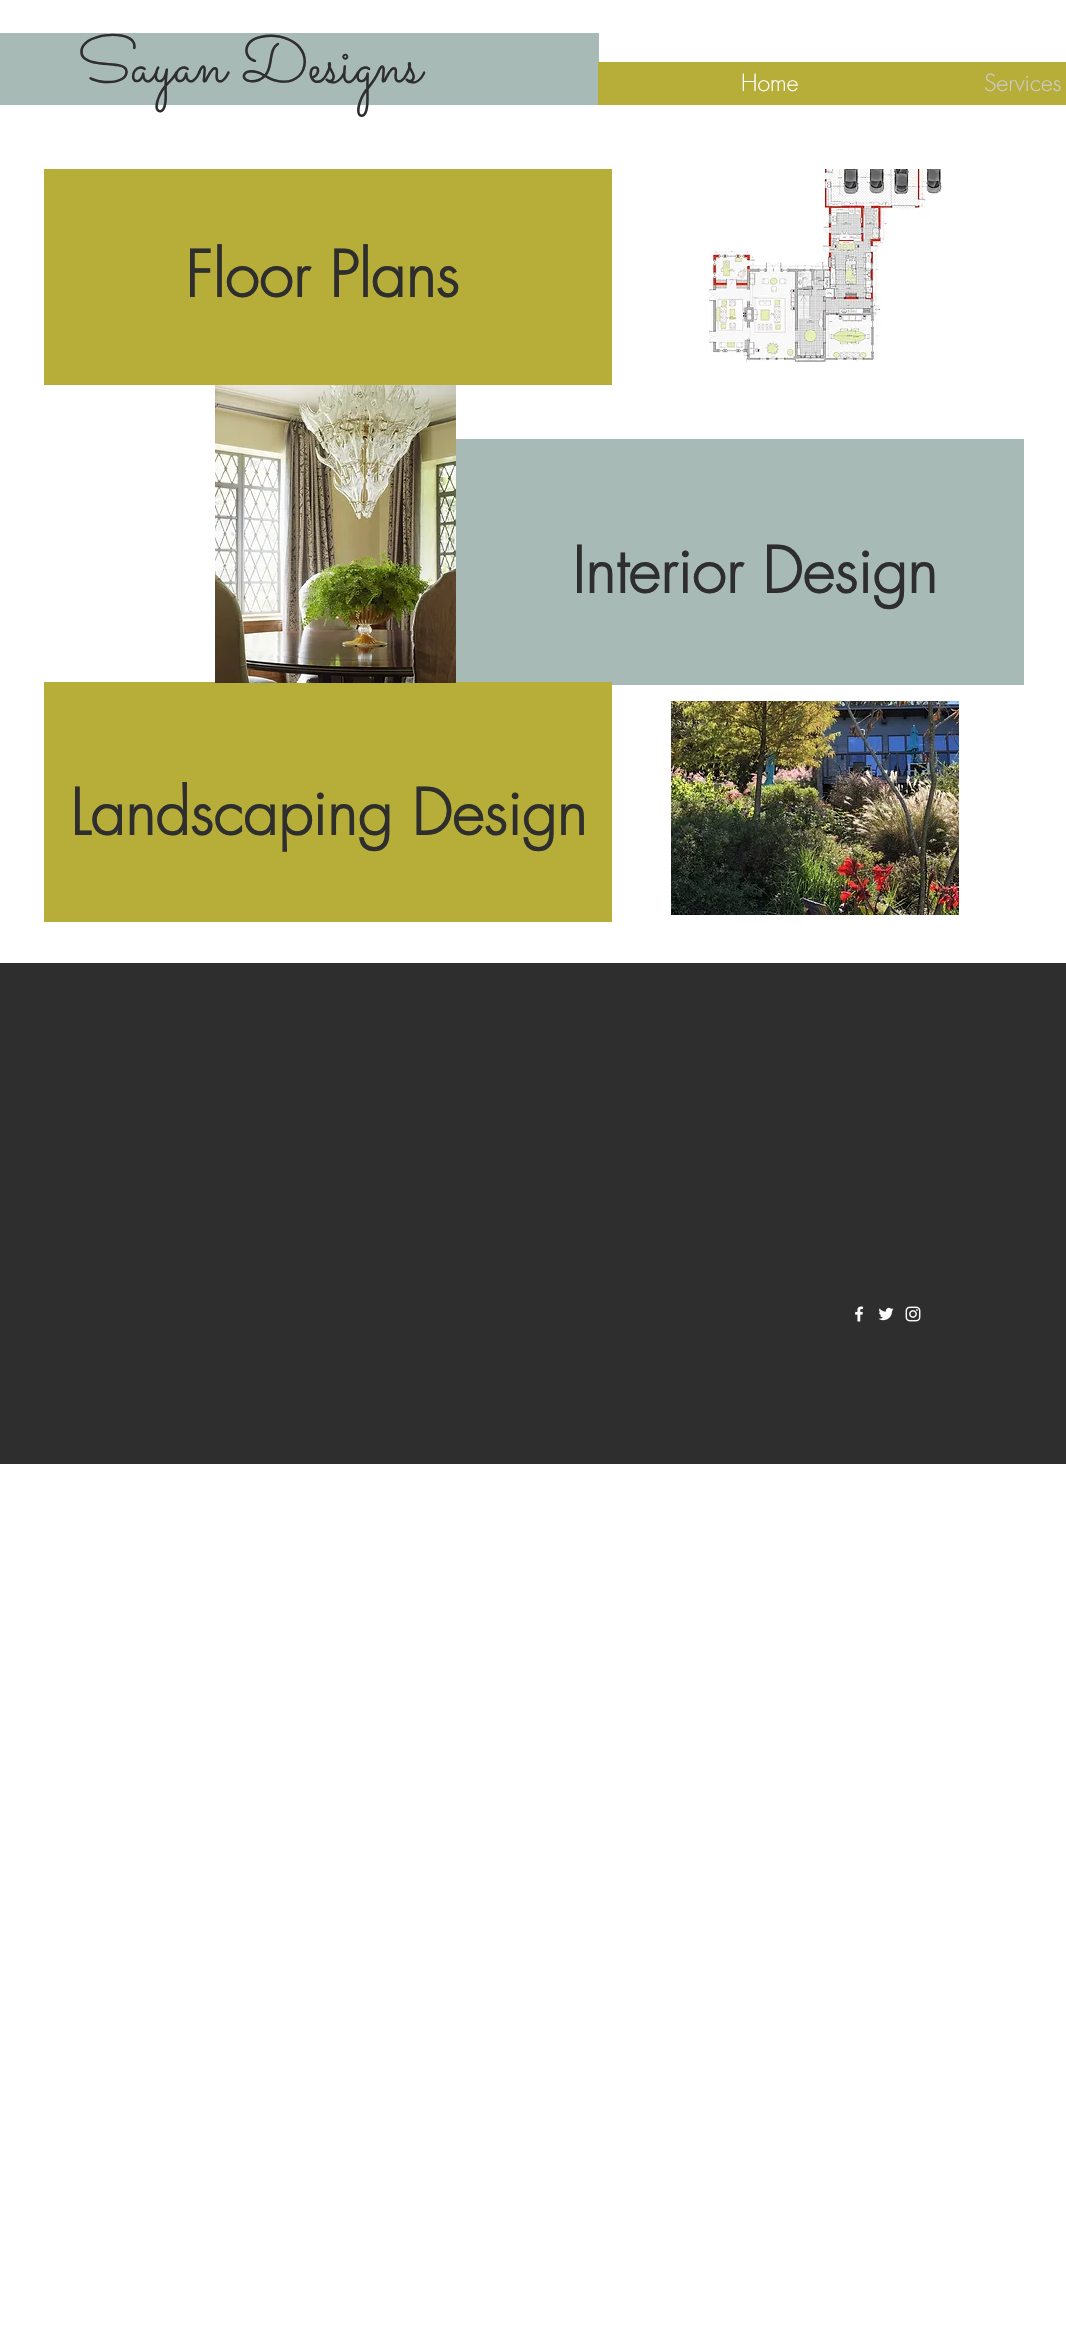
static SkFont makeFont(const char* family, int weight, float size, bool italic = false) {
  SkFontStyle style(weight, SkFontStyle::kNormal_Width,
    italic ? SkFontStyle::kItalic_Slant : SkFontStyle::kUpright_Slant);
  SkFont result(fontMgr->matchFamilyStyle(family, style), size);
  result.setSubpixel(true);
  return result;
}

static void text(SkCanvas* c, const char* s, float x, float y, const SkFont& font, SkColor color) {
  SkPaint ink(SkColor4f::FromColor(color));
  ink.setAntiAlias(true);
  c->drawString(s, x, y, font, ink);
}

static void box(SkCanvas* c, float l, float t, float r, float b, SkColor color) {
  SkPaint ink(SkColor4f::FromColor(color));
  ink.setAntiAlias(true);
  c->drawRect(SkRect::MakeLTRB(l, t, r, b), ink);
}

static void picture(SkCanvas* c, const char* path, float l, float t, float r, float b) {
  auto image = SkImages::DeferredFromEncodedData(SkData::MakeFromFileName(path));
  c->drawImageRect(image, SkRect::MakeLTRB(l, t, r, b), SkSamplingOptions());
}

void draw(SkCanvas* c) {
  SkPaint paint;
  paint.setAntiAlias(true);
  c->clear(0xffffffff);
  box(c, 0, 33, 599, 105, 0xffa7bab6);
  SkFont face1 = makeFont("Sacramento", 400, 66);
  text(c, "Sayan Designs", 77, 82, face1, 0xff2f2e2e);
  box(c, 598, 62, 1066, 105, 0xffb7ae39);
  SkFont face2 = makeFont("futura", 300, 23);
  text(c, "Home", 741, 91, face2, 0xffffffff);
  text(c, "Services", 984, 91, face2, 0xffcccccc);
  box(c, 44, 169, 612, 385, 0xffb7ae39);
  SkFont face3 = makeFont("futura", 700, 62);
  text(c, "Floor Plans", 185, 297, face3, 0xff2f2e2e);
  picture(c, "img_01.png", 707, 169, 942, 362);
  box(c, 456, 439, 1024, 685, 0xffa7bab6);
  box(c, 44, 682, 612, 922, 0xffb7ae39);
  picture(c, "img_02.png", 215, 385, 456, 683);
  text(c, "Interior Design", 572, 593, face3, 0xff2f2e2e);
  text(c, "Landscaping Design", 70, 835, face3, 0xff2f2e2e);
  picture(c, "img_03.png", 671, 701, 959, 915);
  box(c, 0, 963, 1066, 1464, 0xff2f2e2e);
  picture(c, "img_04.png", 855, 1306, 864, 1322);
  picture(c, "img_05.png", 878, 1307, 894, 1321);
  picture(c, "img_06.png", 905, 1306, 921, 1322);
}
